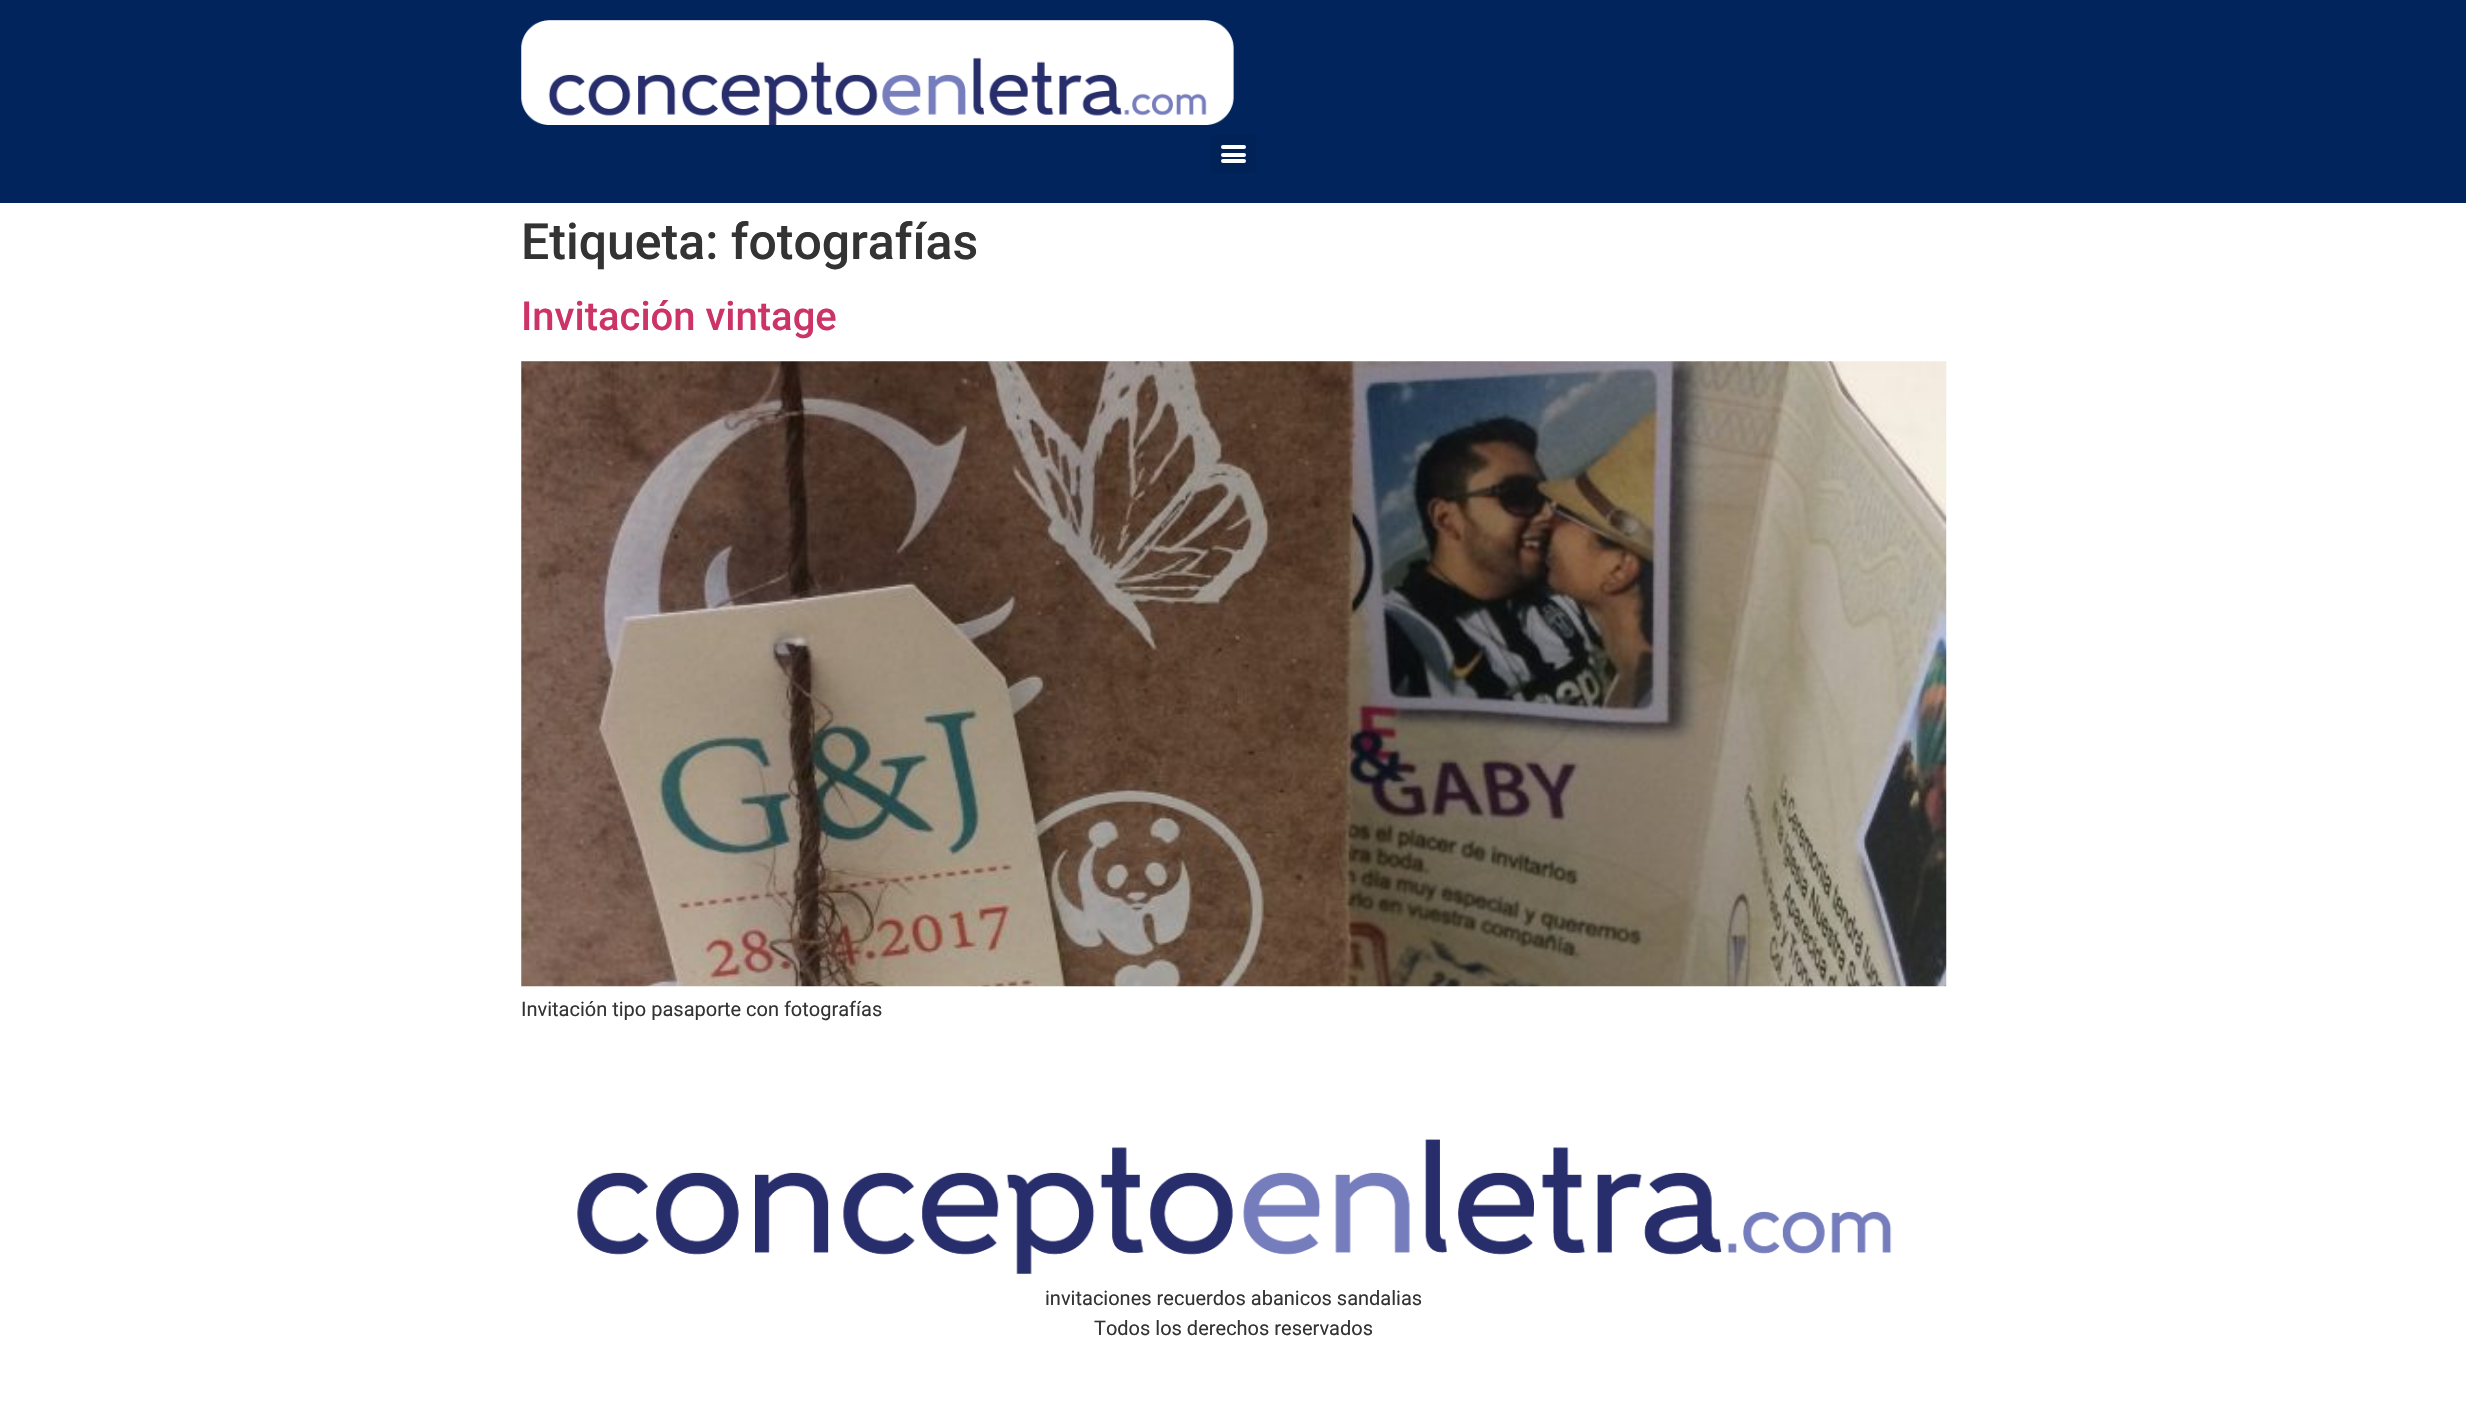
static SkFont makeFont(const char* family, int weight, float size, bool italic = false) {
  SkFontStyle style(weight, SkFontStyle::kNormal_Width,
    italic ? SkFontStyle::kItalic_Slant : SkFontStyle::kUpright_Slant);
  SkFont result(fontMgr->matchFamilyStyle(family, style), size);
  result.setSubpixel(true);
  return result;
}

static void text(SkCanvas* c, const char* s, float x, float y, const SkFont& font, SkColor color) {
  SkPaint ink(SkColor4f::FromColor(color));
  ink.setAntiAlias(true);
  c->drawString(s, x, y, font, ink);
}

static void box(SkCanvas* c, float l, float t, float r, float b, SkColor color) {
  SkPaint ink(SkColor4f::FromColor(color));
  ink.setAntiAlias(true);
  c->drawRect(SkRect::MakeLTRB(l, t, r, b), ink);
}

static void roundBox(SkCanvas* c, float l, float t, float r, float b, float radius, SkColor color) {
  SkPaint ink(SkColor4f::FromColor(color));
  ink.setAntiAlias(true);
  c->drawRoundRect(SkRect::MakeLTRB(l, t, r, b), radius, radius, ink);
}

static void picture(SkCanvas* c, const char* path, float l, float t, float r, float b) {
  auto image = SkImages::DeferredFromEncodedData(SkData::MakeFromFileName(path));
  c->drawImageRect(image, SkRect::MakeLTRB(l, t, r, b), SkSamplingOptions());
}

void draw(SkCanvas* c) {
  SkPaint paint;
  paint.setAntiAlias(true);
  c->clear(0xffffffff);
  box(c, 0, 0, 2466, 203, 0xff00245b);
  picture(c, "img_01.png", 521, 20, 1234, 125);
  roundBox(c, 1211, 135, 1256, 173, 4, 0xff002256);
  roundBox(c, 1221, 153, 1246, 157, 2, 0xffffffff);
  roundBox(c, 1221, 145, 1246, 149, 2, 0xffffffff);
  roundBox(c, 1221, 159, 1246, 163, 2, 0xffffffff);
  SkFont face1 = makeFont("Roboto", 500, 50);
  text(c, "Etiqueta: fotografías", 521, 259, face1, 0xff333333);
  SkFont face2 = makeFont("Roboto", 500, 40);
  text(c, "Invitación vintage", 521, 330, face2, 0xffcc3366);
  picture(c, "img_02.png", 521, 361, 1947, 987);
  SkFont face3 = makeFont("Roboto", 400, 20);
  text(c, "Invitación tipo pasaporte con fotografías", 521, 1016, face3, 0xff333333);
  picture(c, "img_03.png", 577, 1139, 1892, 1274);
  text(c, "invitaciones recuerdos abanicos sandalias", 1045, 1305, face3, 0xff333333);
  text(c, "Todos los derechos reservados", 1094, 1335, face3, 0xff333333);
}
